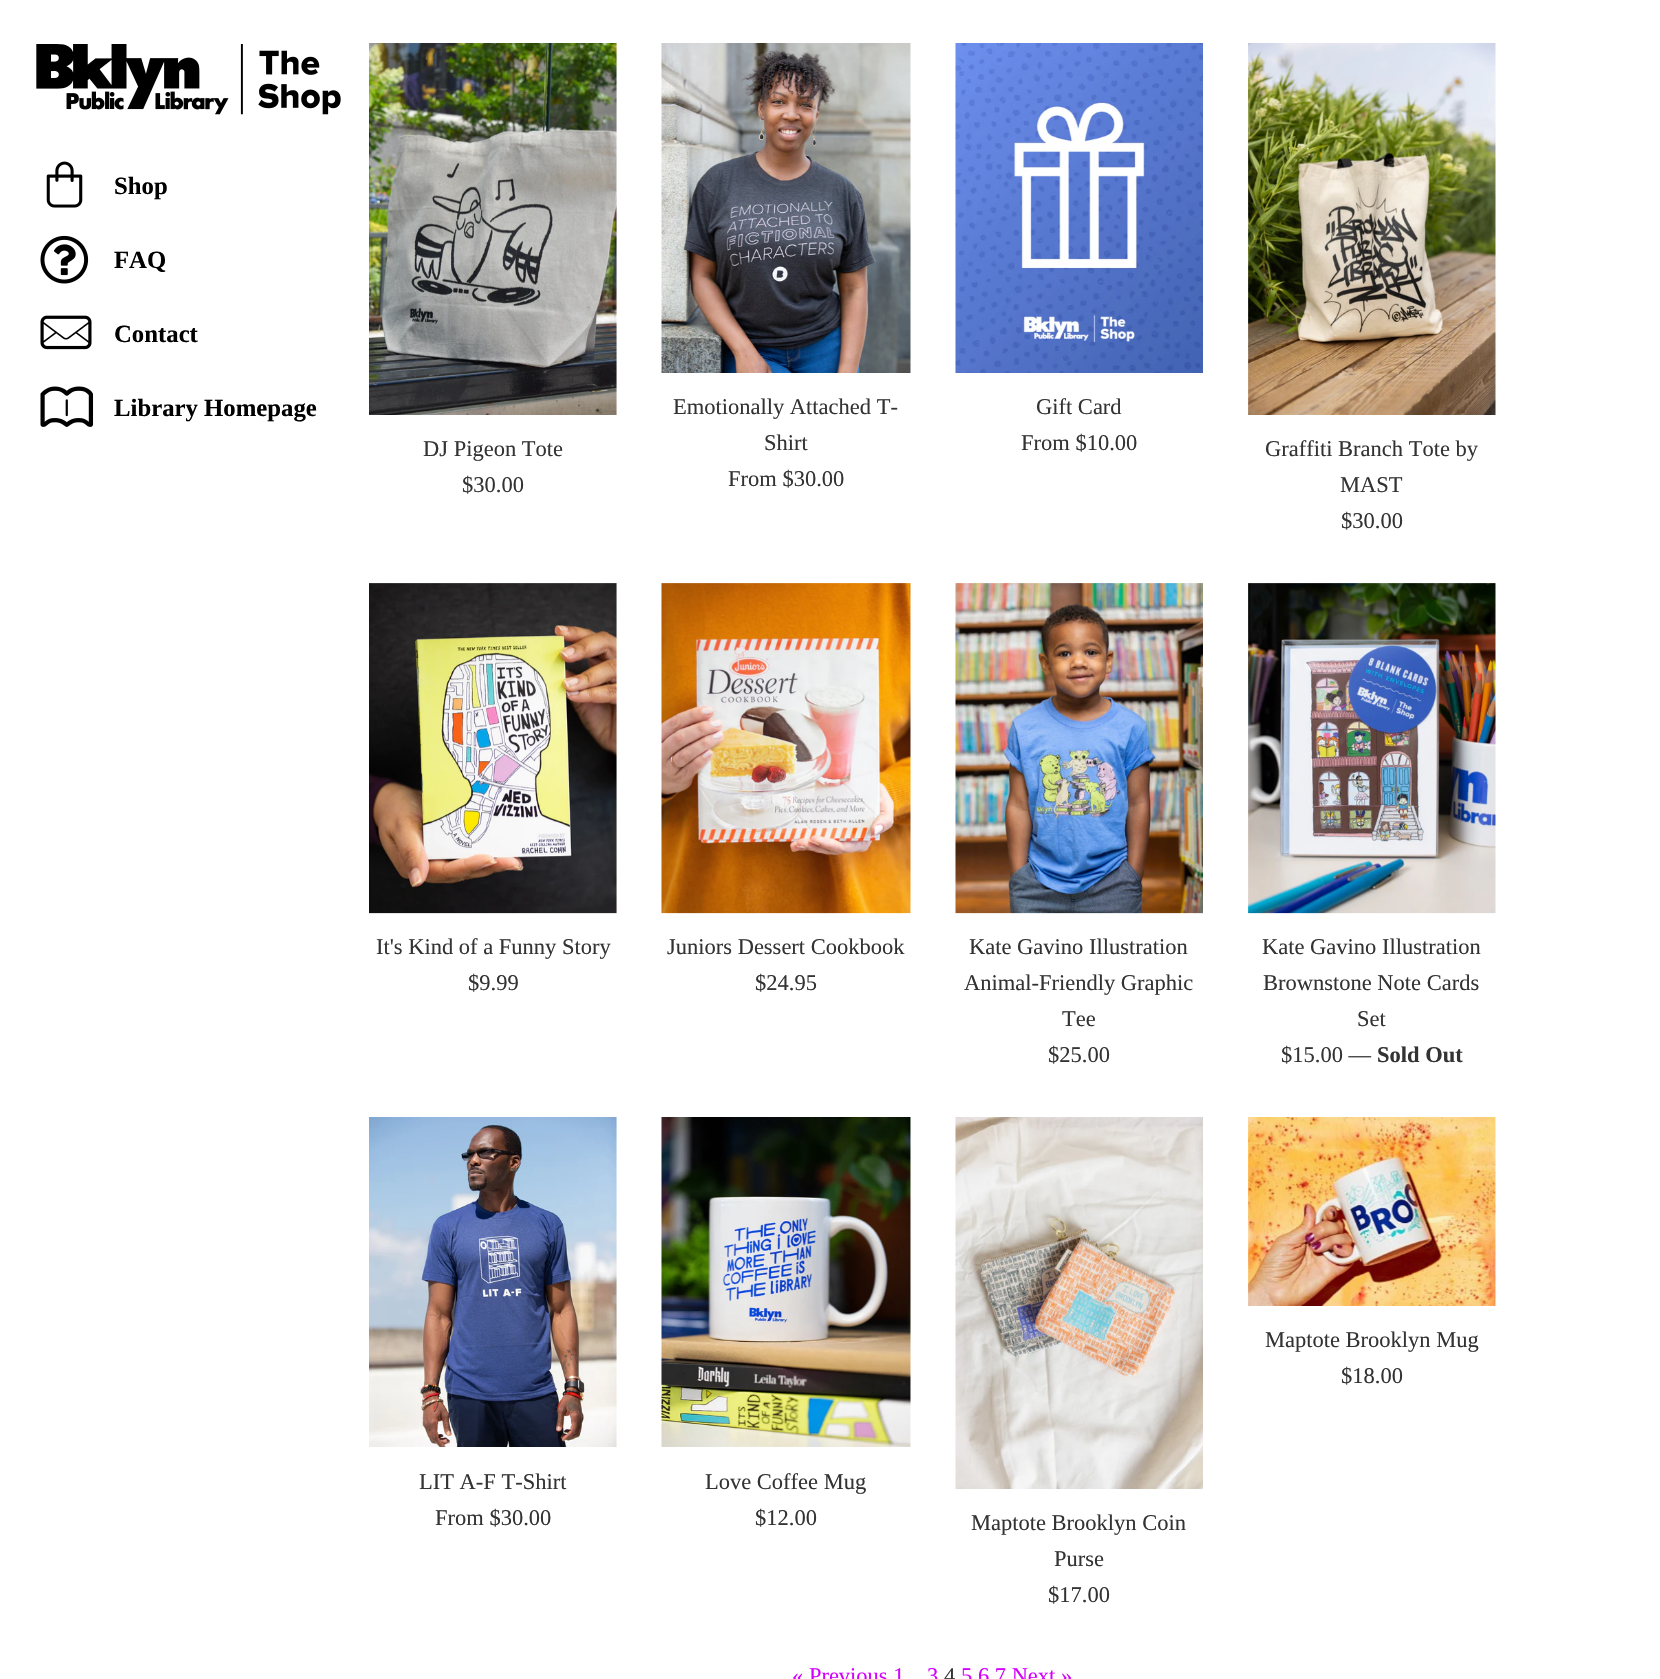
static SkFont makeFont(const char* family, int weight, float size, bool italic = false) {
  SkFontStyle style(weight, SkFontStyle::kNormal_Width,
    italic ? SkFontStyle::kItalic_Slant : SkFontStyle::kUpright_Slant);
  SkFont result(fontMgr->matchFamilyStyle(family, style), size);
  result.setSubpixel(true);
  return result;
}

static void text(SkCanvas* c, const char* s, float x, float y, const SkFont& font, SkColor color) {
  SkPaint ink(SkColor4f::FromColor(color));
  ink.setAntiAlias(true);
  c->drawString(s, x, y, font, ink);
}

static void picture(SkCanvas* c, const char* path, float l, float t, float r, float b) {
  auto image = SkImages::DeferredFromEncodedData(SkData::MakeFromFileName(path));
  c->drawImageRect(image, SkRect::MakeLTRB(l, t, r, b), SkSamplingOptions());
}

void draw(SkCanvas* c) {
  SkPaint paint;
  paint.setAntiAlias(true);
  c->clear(0xffffffff);
  picture(c, "img_01.png", 36, 44, 341, 115);
  picture(c, "img_02.png", 46, 161, 83, 208);
  SkFont face1 = makeFont("Liberation Serif", 700, 24.75f);
  text(c, "Shop", 114, 194, face1, 0xff000000);
  picture(c, "img_03.png", 40, 235, 89, 284);
  text(c, "FAQ", 114, 268, face1, 0xff000000);
  picture(c, "img_04.png", 40, 315, 92, 350);
  text(c, "Contact", 114, 342, face1, 0xff000000);
  picture(c, "img_05.png", 40, 386, 94, 427);
  text(c, "Library Homepage", 114, 416, face1, 0xff000000);
  picture(c, "img_06.png", 661, 43, 911, 373);
  SkFont face2 = makeFont("Liberation Serif", 400, 22.5f);
  text(c, "Emotionally Attached T-", 673, 414, face2, 0xff333333);
  text(c, "Shirt", 764, 450, face2, 0xff333333);
  text(c, "From $30.00", 728, 486, face2, 0xff333333);
  picture(c, "img_07.png", 955, 43, 1203, 373);
  text(c, "Gift Card", 1036, 414, face2, 0xff333333);
  text(c, "From $10.00", 1021, 450, face2, 0xff333333);
  picture(c, "img_08.png", 369, 43, 617, 415);
  text(c, "DJ Pigeon Tote", 423, 456, face2, 0xff333333);
  text(c, "$30.00", 462, 492, face2, 0xff333333);
  picture(c, "img_09.png", 1248, 43, 1496, 415);
  text(c, "Graffiti Branch Tote by", 1265, 456, face2, 0xff333333);
  text(c, "MAST", 1340, 492, face2, 0xff333333);
  text(c, "$30.00", 1341, 528, face2, 0xff333333);
  picture(c, "img_10.png", 369, 583, 617, 914);
  text(c, "It's Kind of a Funny Story", 376, 954, face2, 0xff333333);
  text(c, "$9.99", 468, 990, face2, 0xff333333);
  picture(c, "img_11.png", 661, 583, 911, 914);
  text(c, "Juniors Dessert Cookbook", 667, 954, face2, 0xff333333);
  text(c, "$24.95", 755, 990, face2, 0xff333333);
  picture(c, "img_12.png", 955, 583, 1203, 914);
  text(c, "Kate Gavino Illustration", 969, 954, face2, 0xff333333);
  text(c, "Animal-Friendly Graphic", 964, 990, face2, 0xff333333);
  text(c, "Tee", 1062, 1026, face2, 0xff333333);
  text(c, "$25.00", 1048, 1062, face2, 0xff333333);
  picture(c, "img_13.png", 1248, 583, 1496, 914);
  text(c, "Kate Gavino Illustration", 1262, 954, face2, 0xff333333);
  text(c, "Brownstone Note Cards", 1263, 990, face2, 0xff333333);
  text(c, "Set", 1357, 1026, face2, 0xff333333);
  text(c, "$15.00 —", 1281, 1062, face2, 0xff333333);
  SkFont face3 = makeFont("Liberation Serif", 700, 22.5f);
  text(c, "Sold Out", 1377, 1062, face3, 0xff333333);
  picture(c, "img_14.png", 1248, 1117, 1496, 1306);
  text(c, "Maptote Brooklyn Mug", 1265, 1347, face2, 0xff333333);
  text(c, "$18.00", 1341, 1383, face2, 0xff333333);
  picture(c, "img_15.png", 369, 1117, 617, 1447);
  text(c, "LIT A-F T-Shirt", 419, 1489, face2, 0xff333333);
  text(c, "From $30.00", 435, 1525, face2, 0xff333333);
  picture(c, "img_16.png", 661, 1117, 911, 1447);
  text(c, "Love Coffee Mug", 705, 1489, face2, 0xff333333);
  text(c, "$12.00", 755, 1525, face2, 0xff333333);
  picture(c, "img_17.png", 955, 1117, 1203, 1489);
  text(c, "Maptote Brooklyn Coin", 971, 1530, face2, 0xff333333);
  text(c, "Purse", 1054, 1566, face2, 0xff333333);
  text(c, "$17.00", 1048, 1602, face2, 0xff333333);
  text(c, "« Previous 1", 792, 1683, face2, 0xffd400ff);
  text(c, "3", 927, 1683, face2, 0xffd400ff);
  text(c, "4", 944, 1683, face2, 0xff333333);
  text(c, "5 6 7 Next »", 961, 1683, face2, 0xffd400ff);
}
